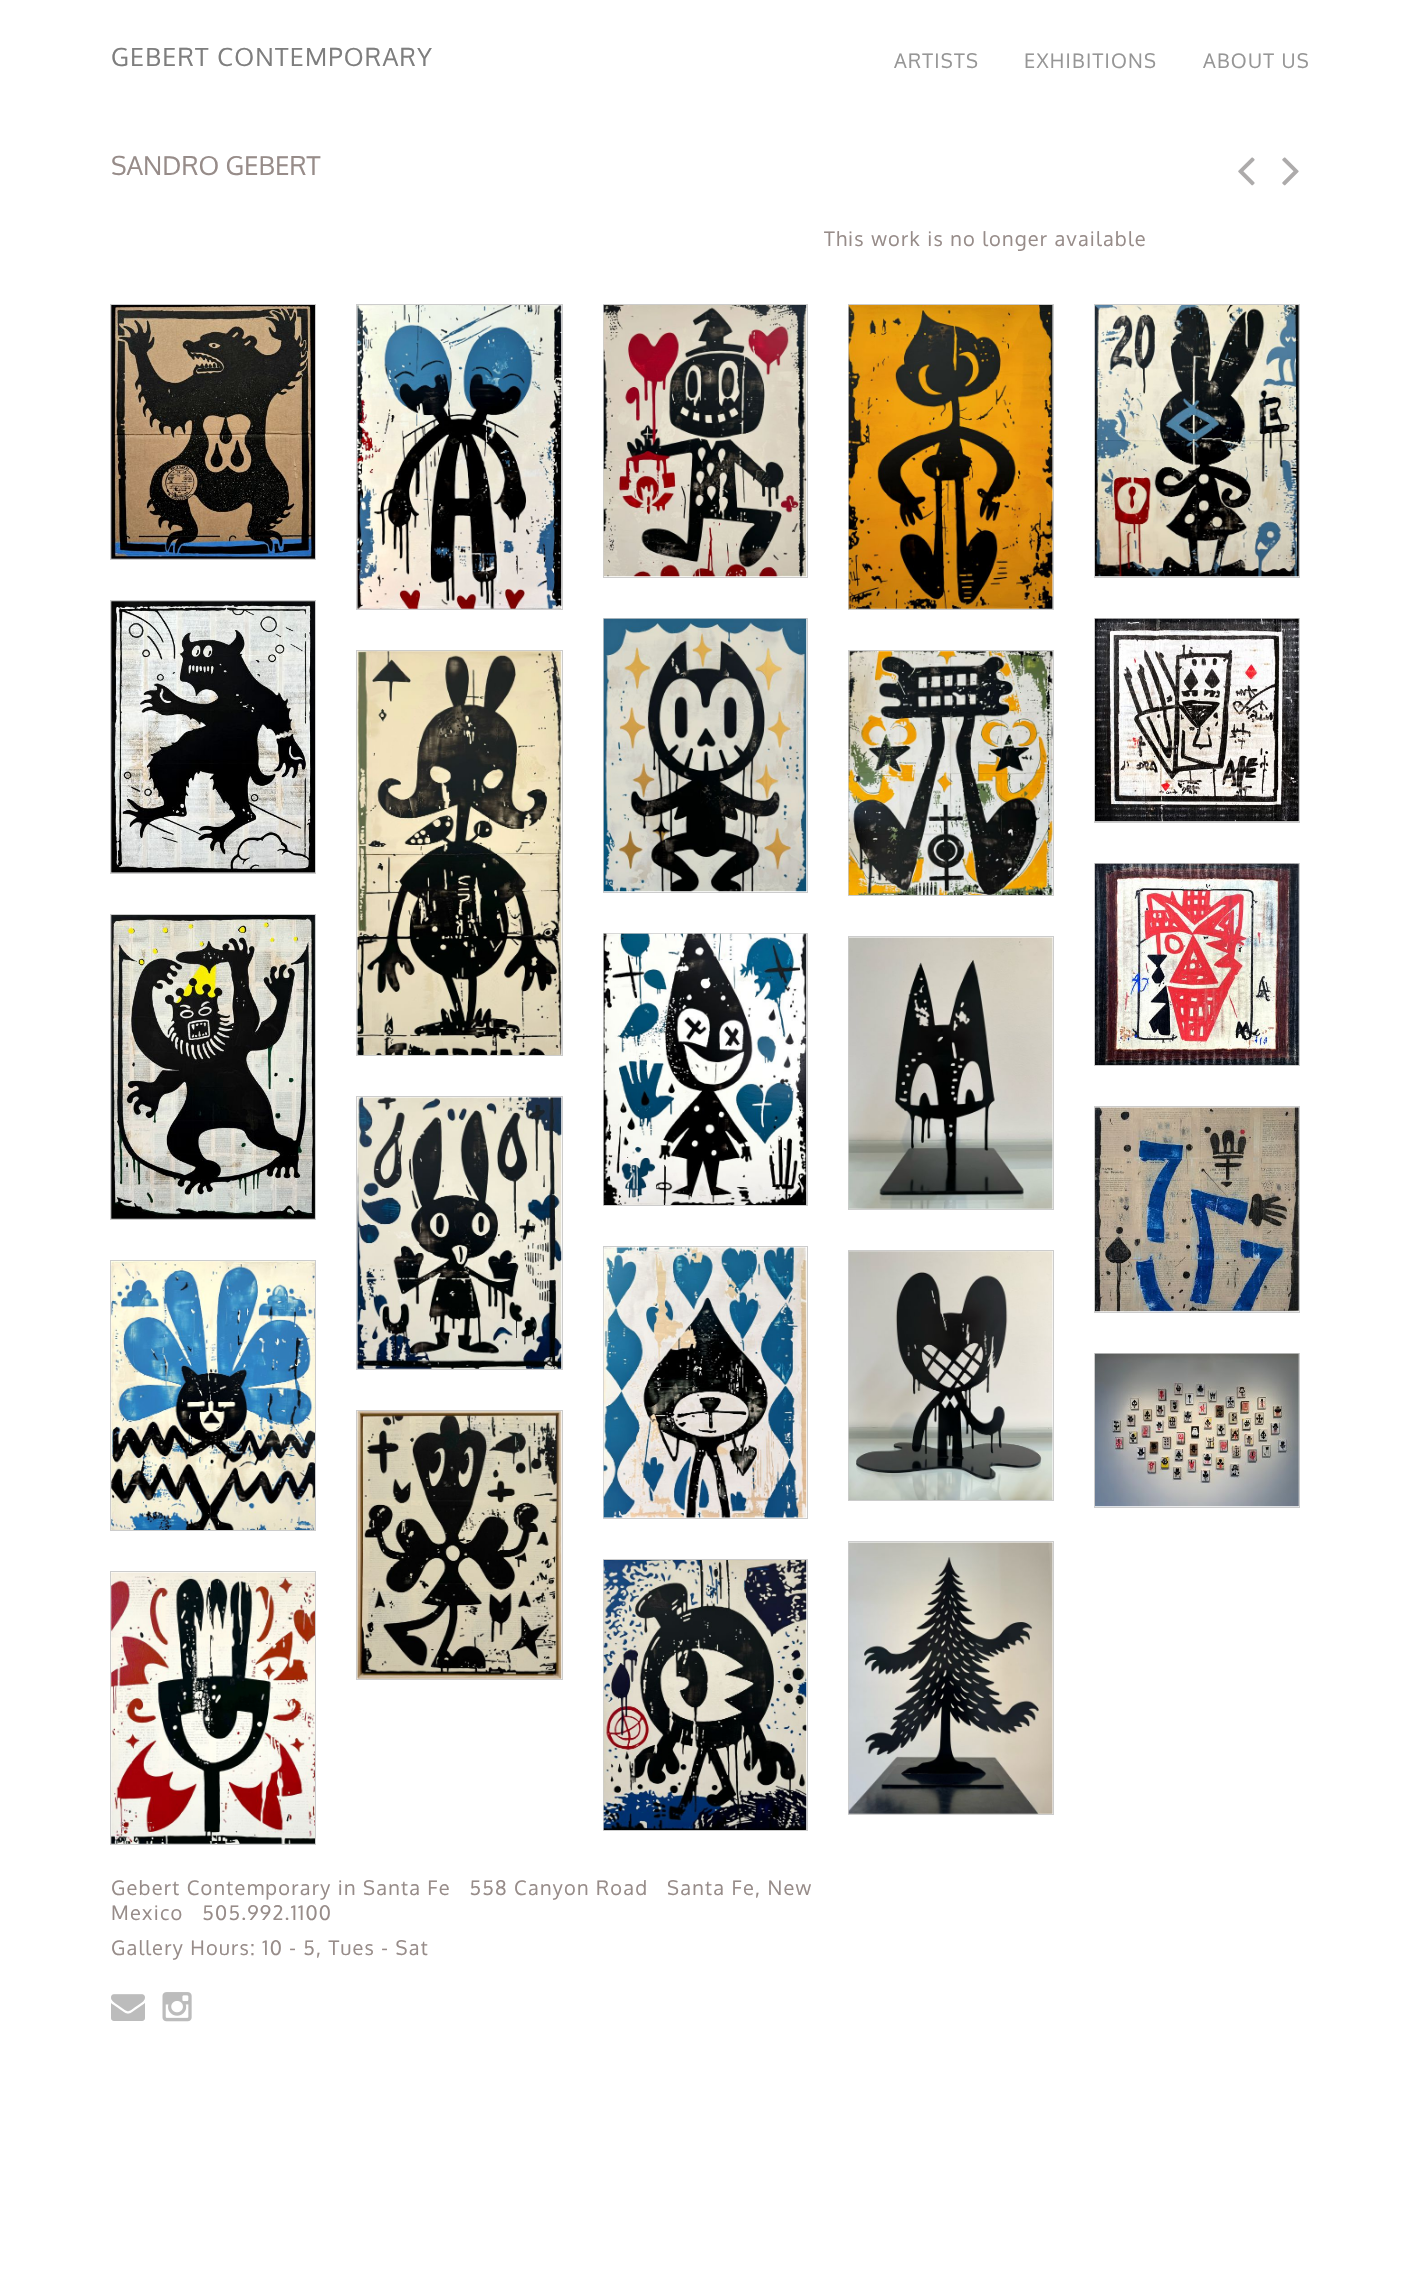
static SkFont makeFont(const char* family, int weight, float size, bool italic = false) {
  SkFontStyle style(weight, SkFontStyle::kNormal_Width,
    italic ? SkFontStyle::kItalic_Slant : SkFontStyle::kUpright_Slant);
  SkFont result(fontMgr->matchFamilyStyle(family, style), size);
  result.setSubpixel(true);
  return result;
}

static void text(SkCanvas* c, const char* s, float x, float y, const SkFont& font, SkColor color) {
  SkPaint ink(SkColor4f::FromColor(color));
  ink.setAntiAlias(true);
  c->drawString(s, x, y, font, ink);
}

static void spacedText(SkCanvas* c, const char* s, float x, float y, const SkFont& font, const SkPaint& ink, float letter, float word) {
  std::vector<SkGlyphID> glyphs(font.countText(s, strlen(s), SkTextEncoding::kUTF8));
  std::vector<float> xs(glyphs.size());
  font.textToGlyphs(s, strlen(s), SkTextEncoding::kUTF8, glyphs);
  font.getXPos(glyphs, xs, x);
  float extra = 0;
  for (size_t i = 0; i < glyphs.size(); i++) {
    xs[i] += extra;
    extra += letter + word * (glyphs[i] == font.unicharToGlyph(' '));
  }
  c->drawTextBlob(SkTextBlob::MakeFromPosHGlyphs(glyphs, xs, y, font), 0, 0, ink);
}

static void picture(SkCanvas* c, const char* path, float l, float t, float r, float b) {
  auto image = SkImages::DeferredFromEncodedData(SkData::MakeFromFileName(path));
  c->drawImageRect(image, SkRect::MakeLTRB(l, t, r, b), SkSamplingOptions());
}

void draw(SkCanvas* c) {
  SkPaint paint;
  paint.setAntiAlias(true);
  c->clear(0xffffffff);
  SkFont face1 = makeFont("Oxygen", 400, 25);
  paint.setColor(0xff7e7e7e);
  spacedText(c, "GEBERT CONTEMPORARY", 111, 66, face1, paint, 1.25f, 0);
  SkFont face2 = makeFont("Oxygen", 400, 20);
  paint.setColor(0xff969696);
  spacedText(c, "ARTISTS", 894, 68, face2, paint, 1.25f, 0);
  spacedText(c, "EXHIBITIONS", 1024, 68, face2, paint, 1.25f, 0);
  spacedText(c, "ABOUT US", 1203, 68, face2, paint, 1.25f, 0);
  SkFont face3 = makeFont("Oxygen", 400, 26);
  text(c, "SANDRO GEBERT", 111, 175, face3, 0xff978c89);
  SkFont face4 = makeFont("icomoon", 400, 50);
  text(c, ".", 1237, 191, face4, 0xffadabab);
  text(c, "/", 1282, 191, face4, 0xffadabab);
  paint.setColor(0xff978c89);
  spacedText(c, "This work is no longer available", 824, 246, face2, paint, 1.25f, 0);
  paint.setStyle(SkPaint::kStroke_Style);
  paint.setStrokeWidth(1);
  paint.setColor(0xffcccccc);
  c->drawRect(SkRect::MakeLTRB(110.5f, 304.5f, 315.5f, 559.5f), paint);
  picture(c, "img_01.png", 111, 305, 315, 559);
  c->drawRect(SkRect::MakeLTRB(356.5f, 304.5f, 562.5f, 609.5f), paint);
  picture(c, "img_02.png", 357, 305, 562, 609);
  c->drawRect(SkRect::MakeLTRB(603.5f, 304.5f, 807.5f, 577.5f), paint);
  picture(c, "img_03.png", 603, 305, 807, 577);
  c->drawRect(SkRect::MakeLTRB(848.5f, 304.5f, 1053.5f, 609.5f), paint);
  picture(c, "img_04.png", 848, 305, 1053, 609);
  c->drawRect(SkRect::MakeLTRB(1094.5f, 304.5f, 1299.5f, 577.5f), paint);
  picture(c, "img_05.png", 1095, 305, 1299, 577);
  c->drawRect(SkRect::MakeLTRB(110.5f, 600.5f, 315.5f, 873.5f), paint);
  picture(c, "img_06.png", 111, 601, 315, 873);
  c->drawRect(SkRect::MakeLTRB(356.5f, 650.5f, 562.5f, 1055.5f), paint);
  picture(c, "img_07.png", 357, 651, 562, 1055);
  c->drawRect(SkRect::MakeLTRB(603.5f, 618.5f, 807.5f, 892.5f), paint);
  picture(c, "img_08.png", 603, 618, 807, 892);
  c->drawRect(SkRect::MakeLTRB(848.5f, 650.5f, 1053.5f, 895.5f), paint);
  picture(c, "img_09.png", 848, 651, 1053, 895);
  c->drawRect(SkRect::MakeLTRB(1094.5f, 618.5f, 1299.5f, 822.5f), paint);
  picture(c, "img_10.png", 1095, 618, 1299, 822);
  c->drawRect(SkRect::MakeLTRB(110.5f, 914.5f, 315.5f, 1219.5f), paint);
  picture(c, "img_11.png", 111, 915, 315, 1219);
  c->drawRect(SkRect::MakeLTRB(356.5f, 1096.5f, 562.5f, 1369.5f), paint);
  picture(c, "img_12.png", 357, 1097, 562, 1369);
  c->drawRect(SkRect::MakeLTRB(603.5f, 933.5f, 807.5f, 1205.5f), paint);
  picture(c, "img_13.png", 603, 933, 807, 1205);
  c->drawRect(SkRect::MakeLTRB(848.5f, 936.5f, 1053.5f, 1209.5f), paint);
  picture(c, "img_14.png", 848, 937, 1053, 1209);
  c->drawRect(SkRect::MakeLTRB(1094.5f, 863.5f, 1299.5f, 1065.5f), paint);
  picture(c, "img_15.png", 1095, 863, 1299, 1065);
  c->drawRect(SkRect::MakeLTRB(1094.5f, 1106.5f, 1299.5f, 1312.5f), paint);
  picture(c, "img_16.png", 1095, 1107, 1299, 1312);
  c->drawRect(SkRect::MakeLTRB(110.5f, 1260.5f, 315.5f, 1530.5f), paint);
  picture(c, "img_17.png", 111, 1261, 315, 1530);
  c->drawRect(SkRect::MakeLTRB(356.5f, 1410.5f, 562.5f, 1679.5f), paint);
  picture(c, "img_18.png", 357, 1411, 562, 1679);
  c->drawRect(SkRect::MakeLTRB(603.5f, 1246.5f, 807.5f, 1518.5f), paint);
  picture(c, "img_19.png", 603, 1247, 807, 1518);
  c->drawRect(SkRect::MakeLTRB(848.5f, 1250.5f, 1053.5f, 1500.5f), paint);
  picture(c, "img_20.png", 848, 1251, 1053, 1500);
  c->drawRect(SkRect::MakeLTRB(1094.5f, 1353.5f, 1299.5f, 1507.5f), paint);
  picture(c, "img_21.png", 1095, 1353, 1299, 1507);
  c->drawRect(SkRect::MakeLTRB(110.5f, 1571.5f, 315.5f, 1844.5f), paint);
  picture(c, "img_22.png", 111, 1572, 315, 1844);
  c->drawRect(SkRect::MakeLTRB(603.5f, 1559.5f, 807.5f, 1830.5f), paint);
  picture(c, "img_23.png", 603, 1560, 807, 1830);
  c->drawRect(SkRect::MakeLTRB(848.5f, 1541.5f, 1053.5f, 1814.5f), paint);
  picture(c, "img_24.png", 848, 1542, 1053, 1814);
  paint.setStyle(SkPaint::kFill_Style);
  paint.setColor(0xff978c89);
  spacedText(c, "Gebert Contemporary in Santa Fe   558 Canyon Road   Santa Fe, New", 111, 1895, face2, paint, 1.25f, 0);
  spacedText(c, "Mexico   505.992.1100", 111, 1920, face2, paint, 1.25f, 0);
  spacedText(c, "Gallery Hours: 10 - 5, Tues - Sat", 111, 1955, face2, paint, 1.25f, 0);
  SkFont face5 = makeFont("icomoon", 400, 34);
  paint.setColor(0xffbcbcbc);
  spacedText(c, "-", 111, 2021, face5, paint, 1.25f, 0);
  picture(c, "img_25.png", 162, 1992, 192, 2022);
}
